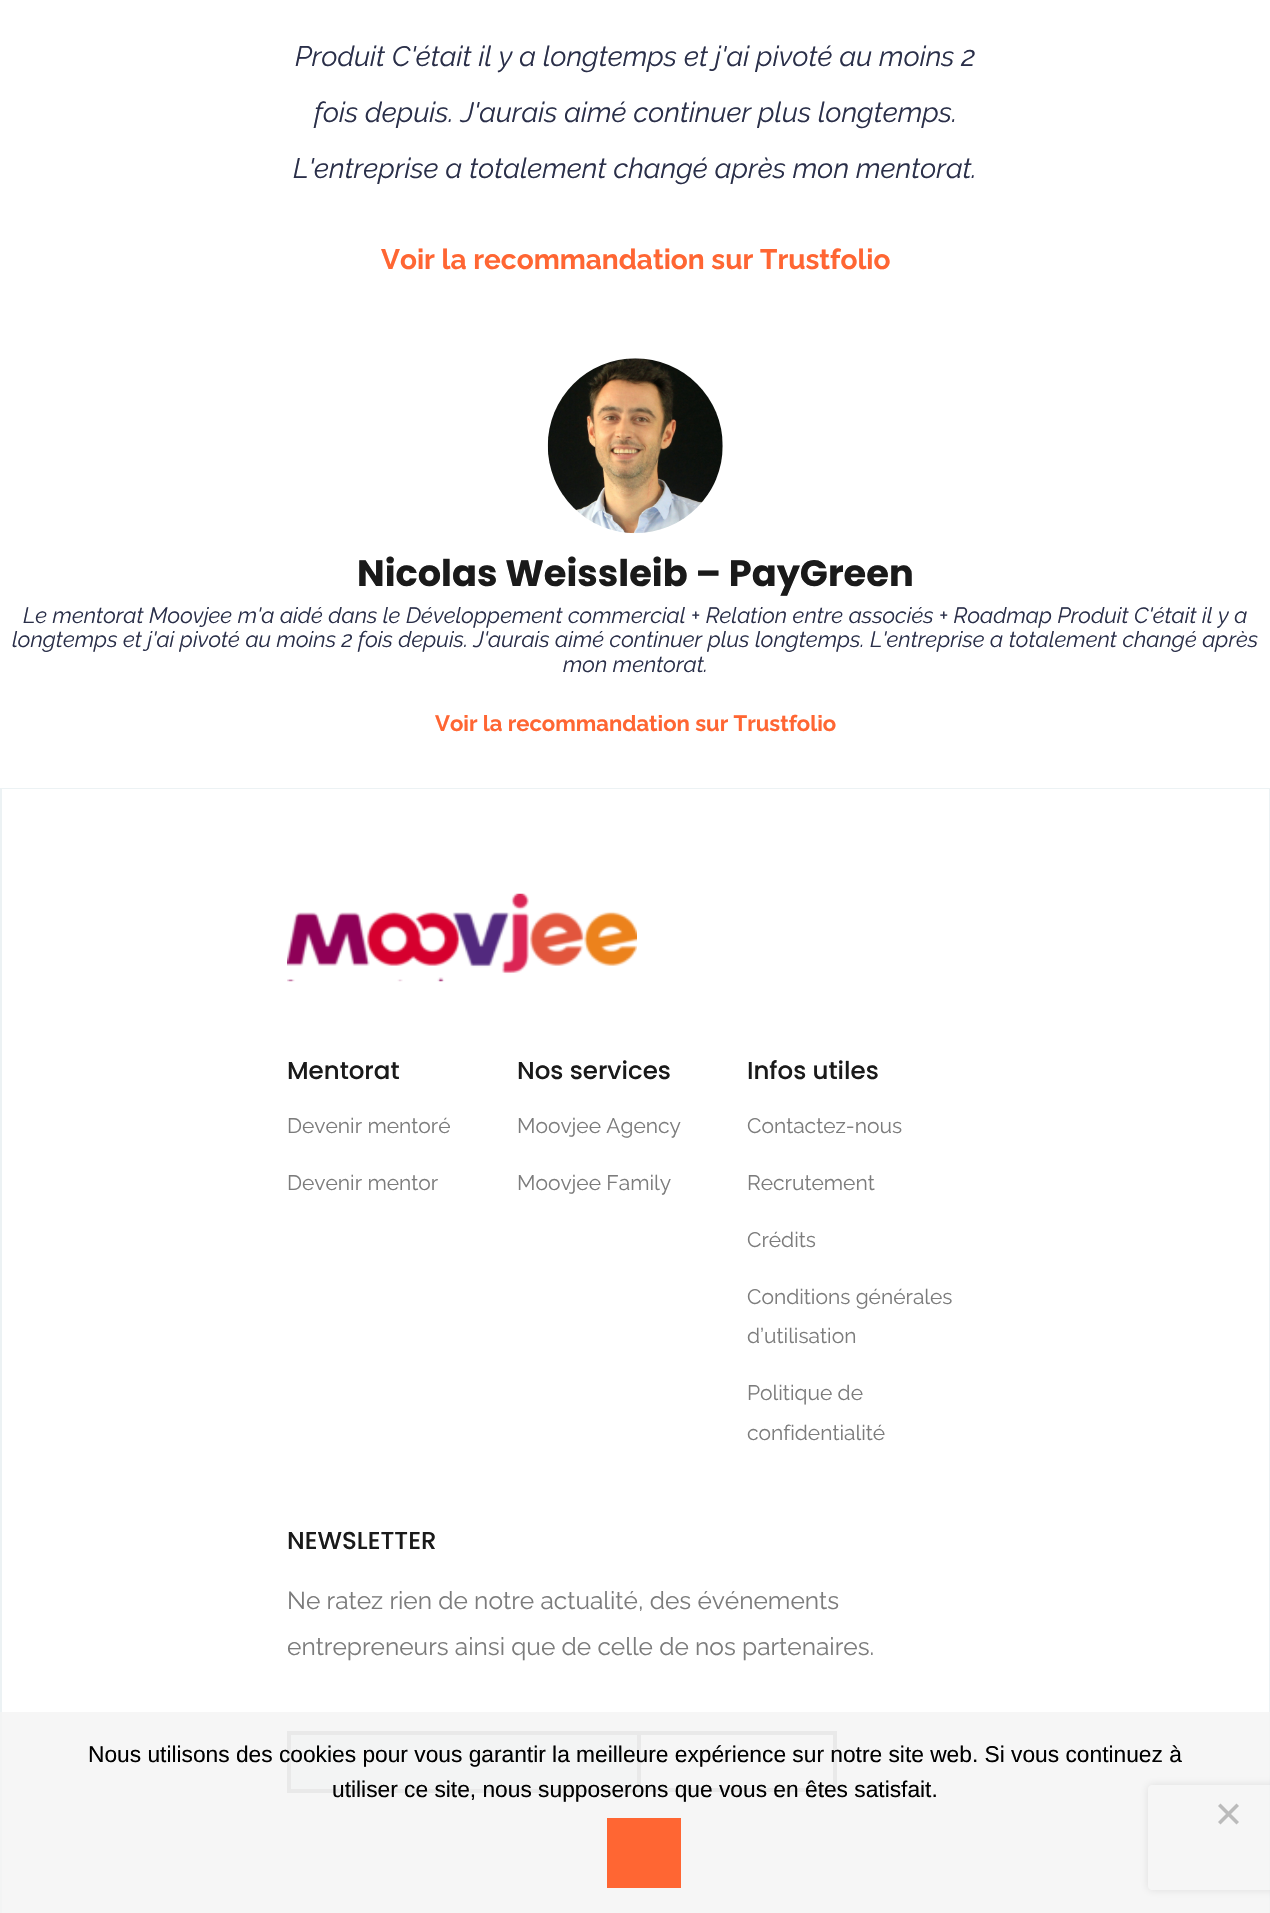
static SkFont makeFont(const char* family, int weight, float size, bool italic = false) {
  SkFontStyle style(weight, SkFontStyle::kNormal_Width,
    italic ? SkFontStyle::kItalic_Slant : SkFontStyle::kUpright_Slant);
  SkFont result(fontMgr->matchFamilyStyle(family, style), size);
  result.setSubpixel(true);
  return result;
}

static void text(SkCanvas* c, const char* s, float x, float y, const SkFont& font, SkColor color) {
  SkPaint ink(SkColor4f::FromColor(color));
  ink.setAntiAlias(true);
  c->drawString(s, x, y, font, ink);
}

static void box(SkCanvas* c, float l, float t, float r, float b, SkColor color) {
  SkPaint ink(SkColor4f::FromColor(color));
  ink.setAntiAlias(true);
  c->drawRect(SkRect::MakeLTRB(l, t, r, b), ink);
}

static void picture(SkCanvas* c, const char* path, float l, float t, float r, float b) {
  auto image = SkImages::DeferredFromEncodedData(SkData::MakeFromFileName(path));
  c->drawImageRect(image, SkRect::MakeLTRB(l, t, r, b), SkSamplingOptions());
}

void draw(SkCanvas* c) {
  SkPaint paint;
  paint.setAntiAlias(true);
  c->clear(0xffffffff);
  SkFont face1 = makeFont("Raleway", 400, 28, true);
  text(c, "Produit C'était il y a longtemps et j'ai pivoté au moins 2", 295, 66, face1, 0xff2a2f49);
  text(c, "fois depuis. J'aurais aimé continuer plus longtemps.", 314, 122, face1, 0xff2a2f49);
  text(c, "L'entreprise a totalement changé après mon mentorat.", 293, 178, face1, 0xff2a2f49);
  SkFont face2 = makeFont("Raleway", 700, 28);
  text(c, "Voir la recommandation sur Trustfolio", 381, 269, face2, 0xffff6633);
  picture(c, "img_01.png", 547, 358, 723, 534);
  SkFont face3 = makeFont("Poppins", 700, 36.75f);
  text(c, "Nicolas Weissleib – PayGreen", 357, 586, face3, 0xff1a1a1a);
  SkFont face4 = makeFont("Raleway", 400, 22.05f, true);
  text(c, "Le mentorat Moovjee m'a aidé dans le Développement commercial + Relation entre associés + Roadmap Produit C'était il y a", 23, 623, face4, 0xff2a2f49);
  text(c, "longtemps et j'ai pivoté au moins 2 fois depuis. J'aurais aimé continuer plus longtemps. L'entreprise a totalement changé après", 12, 647, face4, 0xff2a2f49);
  text(c, "mon mentorat.", 563, 672, face4, 0xff2a2f49);
  SkFont face5 = makeFont("Raleway", 700, 22.05f);
  text(c, "Voir la recommandation sur Trustfolio", 435, 731, face5, 0xffff6633);
  paint.setStyle(SkPaint::kStroke_Style);
  paint.setStrokeWidth(2);
  paint.setColor(0xffecf2f4);
  c->drawRect(SkRect::MakeLTRB(1, 789, 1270, 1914), paint);
  box(c, 2, 789, 1269, 790, 0xffffffff);
  picture(c, "img_02.png", 287, 893, 637, 982);
  SkFont face6 = makeFont("Poppins", 500, 24.5f);
  text(c, "Mentorat", 287, 1079, face6, 0xff1a1a1a);
  SkFont face7 = makeFont("Raleway", 400, 21);
  text(c, "Devenir mentoré", 287, 1133, face7, 0xff7c7c7c);
  text(c, "Devenir mentor", 287, 1190, face7, 0xff7c7c7c);
  text(c, "Nos services", 517, 1079, face6, 0xff1a1a1a);
  text(c, "Moovjee Agency", 517, 1133, face7, 0xff7c7c7c);
  text(c, "Moovjee Family", 517, 1190, face7, 0xff7c7c7c);
  text(c, "Infos utiles", 747, 1079, face6, 0xff1a1a1a);
  text(c, "Contactez-nous", 747, 1133, face7, 0xff7c7c7c);
  text(c, "Recrutement", 747, 1190, face7, 0xff7c7c7c);
  text(c, "Crédits", 747, 1247, face7, 0xff7c7c7c);
  text(c, "Conditions générales", 747, 1304, face7, 0xff7c7c7c);
  text(c, "d’utilisation", 747, 1343, face7, 0xff7c7c7c);
  text(c, "Politique de", 747, 1400, face7, 0xff7c7c7c);
  text(c, "confidentialité", 747, 1440, face7, 0xff7c7c7c);
  text(c, "NEWSLETTER", 287, 1549, face6, 0xff1a1a1a);
  SkFont face8 = makeFont("Raleway", 400, 24.5f);
  text(c, "Ne ratez rien de notre actualité, des événements", 287, 1609, face8, 0xff7c7c7c);
  text(c, "entrepreneurs ainsi que de celle de nos partenaires.", 287, 1655, face8, 0xff7c7c7c);
  box(c, 291, 1735, 637, 1789, 0xffecf2f4);
  box(c, 287, 1731, 637, 1735, 0xffbbbbbb);
  box(c, 287, 1789, 637, 1793, 0xffbbbbbb);
  box(c, 287, 1731, 291, 1792, 0xffbbbbbb);
  paint.setStrokeWidth(4);
  paint.setColor(0xffbbbbbb);
  c->drawRect(SkRect::MakeLTRB(639, 1733, 835, 1790), paint);
  c->save();
  c->clipPath(SkPathBuilder(SkPathFillType::kEvenOdd).moveTo(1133, 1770).lineTo(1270, 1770).lineTo(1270, 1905).lineTo(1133, 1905).close().moveTo(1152, 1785).lineTo(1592, 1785).cubicTo(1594, 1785, 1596, 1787, 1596, 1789).lineTo(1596, 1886).cubicTo(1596, 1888, 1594, 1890, 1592, 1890).lineTo(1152, 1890).cubicTo(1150, 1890, 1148, 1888, 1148, 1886).lineTo(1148, 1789).cubicTo(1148, 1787, 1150, 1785, 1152, 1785).close().detach(), true);
  paint.setStyle(SkPaint::kFill_Style);
  paint.setColor(0xff808080);
  paint.setMaskFilter(SkMaskFilter::MakeBlur(kNormal_SkBlurStyle, 4.5f));
  c->drawRoundRect(SkRect::MakeLTRB(1148, 1785, 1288, 1890), 4, 4, paint);
  paint.setMaskFilter(nullptr);
  c->restore();
  box(c, 0, 1712, 1270, 1913, 0xccf4f4f4);
  SkFont face9 = makeFont("Liberation Sans", 400, 22.75f);
  text(c, "Nous utilisons des cookies pour vous garantir la meilleure expérience sur notre site web. Si vous continuez à", 88, 1762, face9, 0xff000000);
  text(c, "utiliser ce site, nous supposerons que vous en êtes satisfait.", 332, 1797, face9, 0xff000000);
  paint.setColor(0xffbbbbbb);
  c->drawPath(SkPathBuilder().moveTo(1236.5f, 1803.5f).lineTo(1239, 1806).lineTo(1220.5f, 1824.5f).lineTo(1218, 1822).close().detach(), paint);
  c->drawPath(SkPathBuilder().moveTo(1218, 1806).lineTo(1220.5f, 1803.5f).lineTo(1239, 1822).lineTo(1236.5f, 1824.5f).close().detach(), paint);
  box(c, 607, 1818, 681, 1888, 0xffff6633);
}
